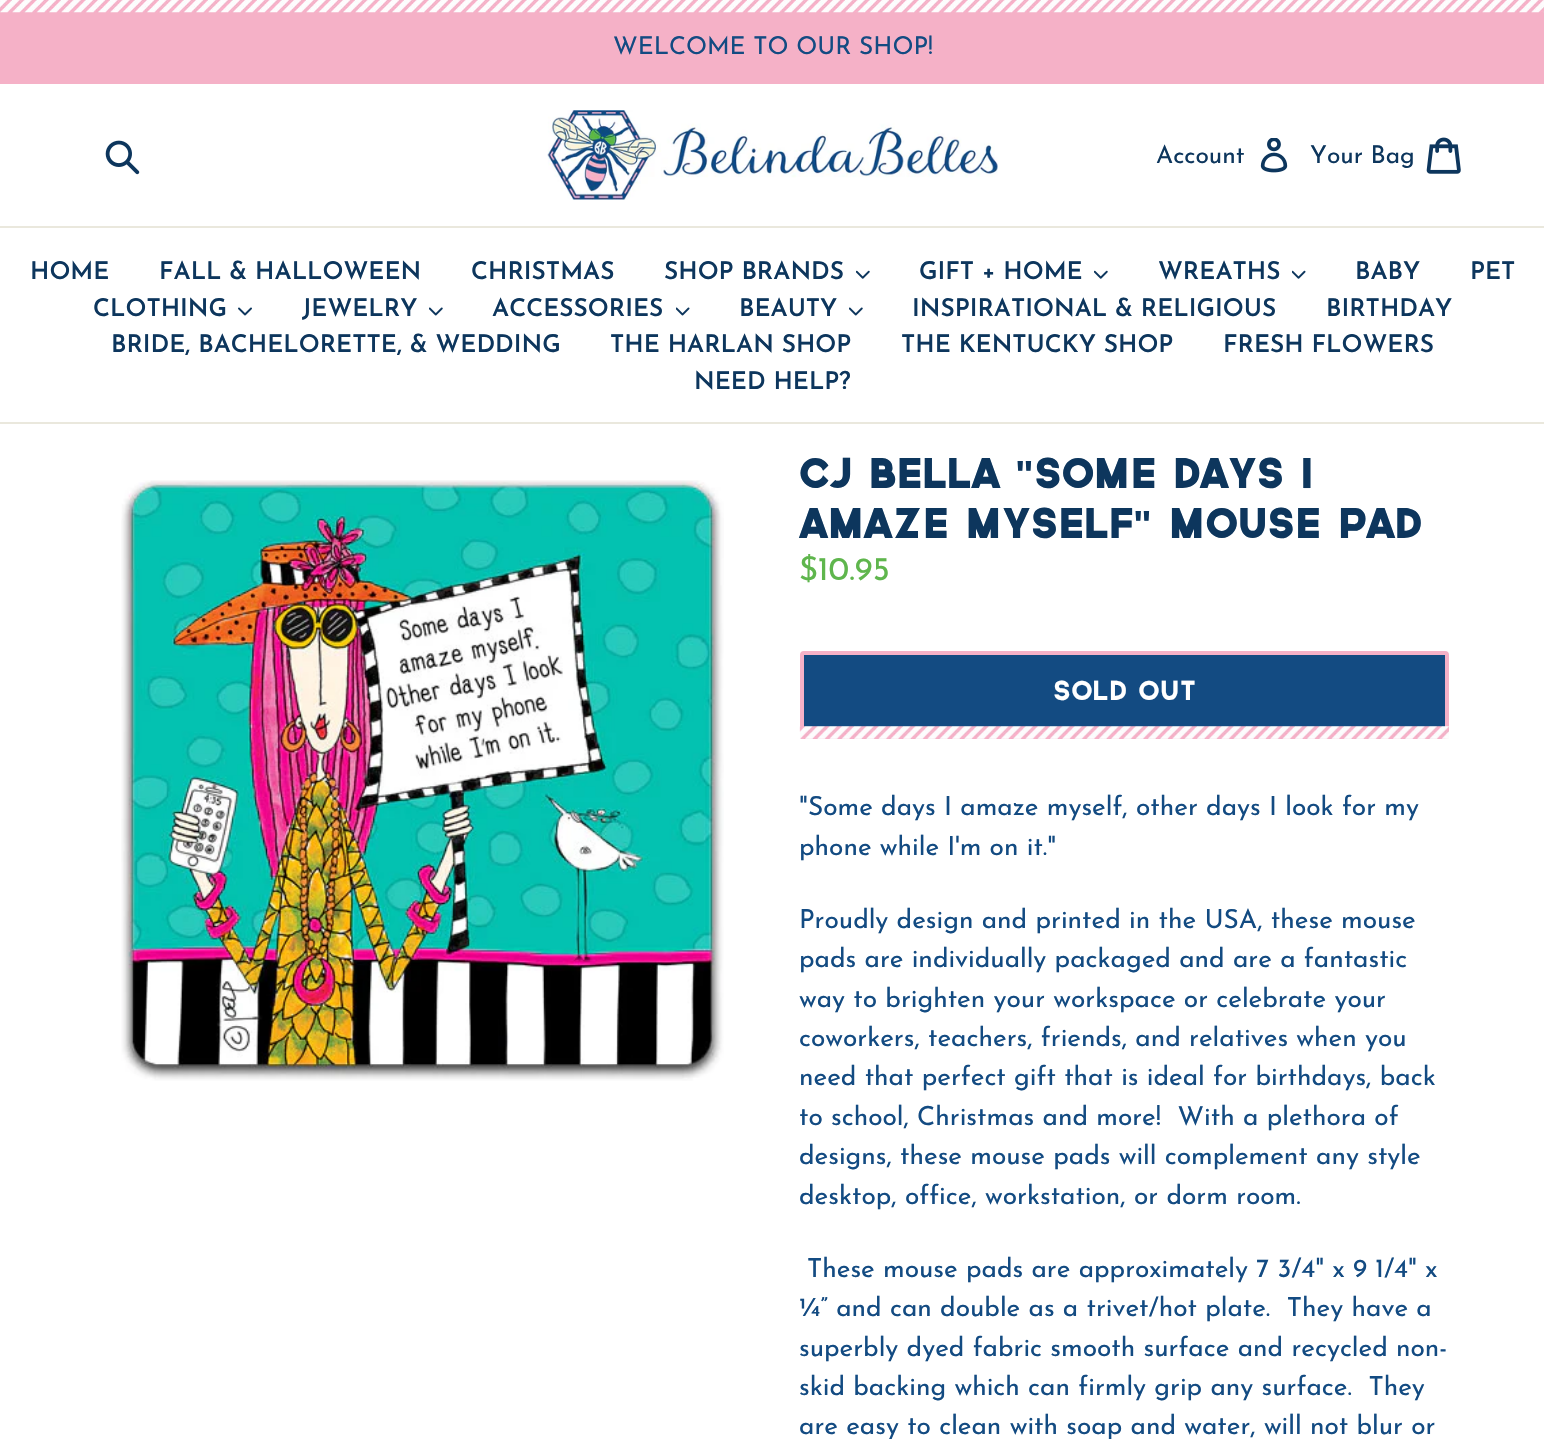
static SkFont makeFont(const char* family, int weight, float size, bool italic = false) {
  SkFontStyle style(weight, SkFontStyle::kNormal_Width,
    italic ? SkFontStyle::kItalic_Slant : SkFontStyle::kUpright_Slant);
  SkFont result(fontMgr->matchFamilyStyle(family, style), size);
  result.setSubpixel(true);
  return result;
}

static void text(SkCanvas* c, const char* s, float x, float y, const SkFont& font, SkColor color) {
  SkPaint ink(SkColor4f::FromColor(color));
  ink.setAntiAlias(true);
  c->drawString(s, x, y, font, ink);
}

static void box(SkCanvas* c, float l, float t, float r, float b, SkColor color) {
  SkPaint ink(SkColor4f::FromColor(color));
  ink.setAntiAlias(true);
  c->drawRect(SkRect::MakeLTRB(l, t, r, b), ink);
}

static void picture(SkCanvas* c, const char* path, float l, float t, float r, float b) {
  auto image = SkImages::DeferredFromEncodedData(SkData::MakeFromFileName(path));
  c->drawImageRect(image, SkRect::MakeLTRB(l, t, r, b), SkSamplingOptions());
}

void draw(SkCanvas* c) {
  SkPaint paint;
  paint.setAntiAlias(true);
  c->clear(0xffffffff);
  box(c, 0, 12, 1544, 84, 0xfff5b1c7);
  picture(c, "img_01.png", 0, 0, 1544, 13);
  SkFont face1 = makeFont("Josefin Sans", 400, 24.5f);
  text(c, "WELCOME TO OUR SHOP!", 613, 54, face1, 0xff134b82);
  picture(c, "img_02.png", 105, 140, 140, 175);
  picture(c, "img_03.png", 547, 110, 998, 200);
  text(c, "Account", 1156, 163, face1, 0xff0d365d);
  picture(c, "img_04.png", 1260, 138, 1288, 173);
  text(c, "Your Bag", 1310, 163, face1, 0xff0d365d);
  picture(c, "img_05.png", 1426, 137, 1461, 174);
  box(c, 0, 226, 1544, 228, 0xffeae8dd);
  box(c, 0, 422, 1544, 424, 0xffeae8dd);
  SkFont face2 = makeFont("Josefin Sans", 600, 24.5f);
  text(c, "HOME", 30, 279, face2, 0xff0d365d);
  text(c, "FALL & HALLOWEEN", 159, 279, face2, 0xff0d365d);
  text(c, "CHRISTMAS", 471, 279, face2, 0xff0d365d);
  text(c, "SHOP BRANDS", 664, 279, face2, 0xff0d365d);
  picture(c, "img_06.png", 856, 270, 870, 279);
  text(c, "GIFT + HOME", 919, 279, face2, 0xff0d365d);
  picture(c, "img_06.png", 1094, 270, 1108, 279);
  text(c, "WREATHS", 1158, 279, face2, 0xff0d365d);
  picture(c, "img_07.png", 1292, 270, 1306, 279);
  text(c, "BABY", 1355, 279, face2, 0xff0d365d);
  text(c, "PET", 1470, 279, face2, 0xff0d365d);
  text(c, "CLOTHING", 93, 316, face2, 0xff0d365d);
  picture(c, "img_08.png", 238, 307, 252, 316);
  text(c, "JEWELRY", 302, 316, face2, 0xff0d365d);
  picture(c, "img_09.png", 429, 307, 443, 316);
  text(c, "ACCESSORIES", 492, 316, face2, 0xff0d365d);
  picture(c, "img_10.png", 676, 307, 690, 316);
  text(c, "BEAUTY", 739, 316, face2, 0xff0d365d);
  picture(c, "img_09.png", 849, 307, 863, 316);
  text(c, "INSPIRATIONAL & RELIGIOUS", 912, 316, face2, 0xff0d365d);
  text(c, "BIRTHDAY", 1326, 316, face2, 0xff0d365d);
  text(c, "BRIDE, BACHELORETTE, & WEDDING", 111, 352, face2, 0xff0d365d);
  text(c, "THE HARLAN SHOP", 610, 352, face2, 0xff0d365d);
  text(c, "THE KENTUCKY SHOP", 901, 352, face2, 0xff0d365d);
  text(c, "FRESH FLOWERS", 1223, 352, face2, 0xff0d365d);
  text(c, "NEED HELP?", 694, 389, face2, 0xff0d365d);
  picture(c, "img_11.png", 121, 480, 724, 1081);
  SkFont face3 = makeFont("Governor", 700, 39.4f);
  text(c, "CJ BELLA", 799, 488, face3, 0xff0d365d);
  SkFont face4 = makeFont("Liberation Sans", 700, 39.4f);
  text(c, "\"", 1015, 488, face4, 0xff0d365d);
  text(c, "SOME DAYS I", 1034, 488, face3, 0xff0d365d);
  text(c, "AMAZE MYSELF", 799, 538, face3, 0xff0d365d);
  text(c, "\"", 1133, 538, face4, 0xff0d365d);
  text(c, "MOUSE PAD", 1168, 538, face3, 0xff0d365d);
  SkFont face5 = makeFont("Josefin Sans", 400, 33);
  text(c, "$10.95", 799, 580, face5, 0xff5fb64d);
  paint.setColor(0xff134b82);
  c->drawRoundRect(SkRect::MakeLTRB(802, 653, 1447, 737), 2, 2, paint);
  paint.setStyle(SkPaint::kStroke_Style);
  paint.setStrokeWidth(4);
  paint.setColor(0xfff5b1c7);
  c->drawRoundRect(SkRect::MakeLTRB(802, 653, 1447, 737), 2, 2, paint);
  SkFont face6 = makeFont("Governor", 400, 26.25f);
  text(c, "SOLD OUT", 1053, 700, face6, 0xffffffff);
  picture(c, "img_12.png", 799, 726, 1449, 739);
  SkFont face7 = makeFont("Josefin Sans", 400, 26.25f);
  text(c, "\"Some days I amaze myself, other days I look for my", 799, 815, face7, 0xff134b82);
  text(c, "phone while I'm on it.\"", 799, 855, face7, 0xff134b82);
  text(c, "Proudly design and printed in the USA, these mouse", 799, 928, face7, 0xff134b82);
  text(c, "pads are individually packaged and are a fantastic", 799, 967, face7, 0xff134b82);
  text(c, "way to brighten your workspace or celebrate your", 799, 1007, face7, 0xff134b82);
  text(c, "coworkers, teachers, friends, and relatives when you", 799, 1046, face7, 0xff134b82);
  text(c, "need that perfect gift that is ideal for birthdays, back", 799, 1085, face7, 0xff134b82);
  text(c, "to school, Christmas and more!  With a plethora of", 799, 1125, face7, 0xff134b82);
  text(c, "designs, these mouse pads will complement any style", 799, 1164, face7, 0xff134b82);
  text(c, "desktop, office, workstation, or dorm room.", 799, 1204, face7, 0xff134b82);
  text(c, "These mouse pads are approximately 7 3/4\" x 9 1/4\" x", 807, 1277, face7, 0xff134b82);
  text(c, "¼” and can double as a trivet/hot plate.  They have a", 799, 1316, face7, 0xff134b82);
  text(c, "superbly dyed fabric smooth surface and recycled non-", 799, 1356, face7, 0xff134b82);
  text(c, "skid backing which can firmly grip any surface.  They", 799, 1395, face7, 0xff134b82);
  text(c, "are easy to clean with soap and water, will not blur or", 799, 1434, face7, 0xff134b82);
}
